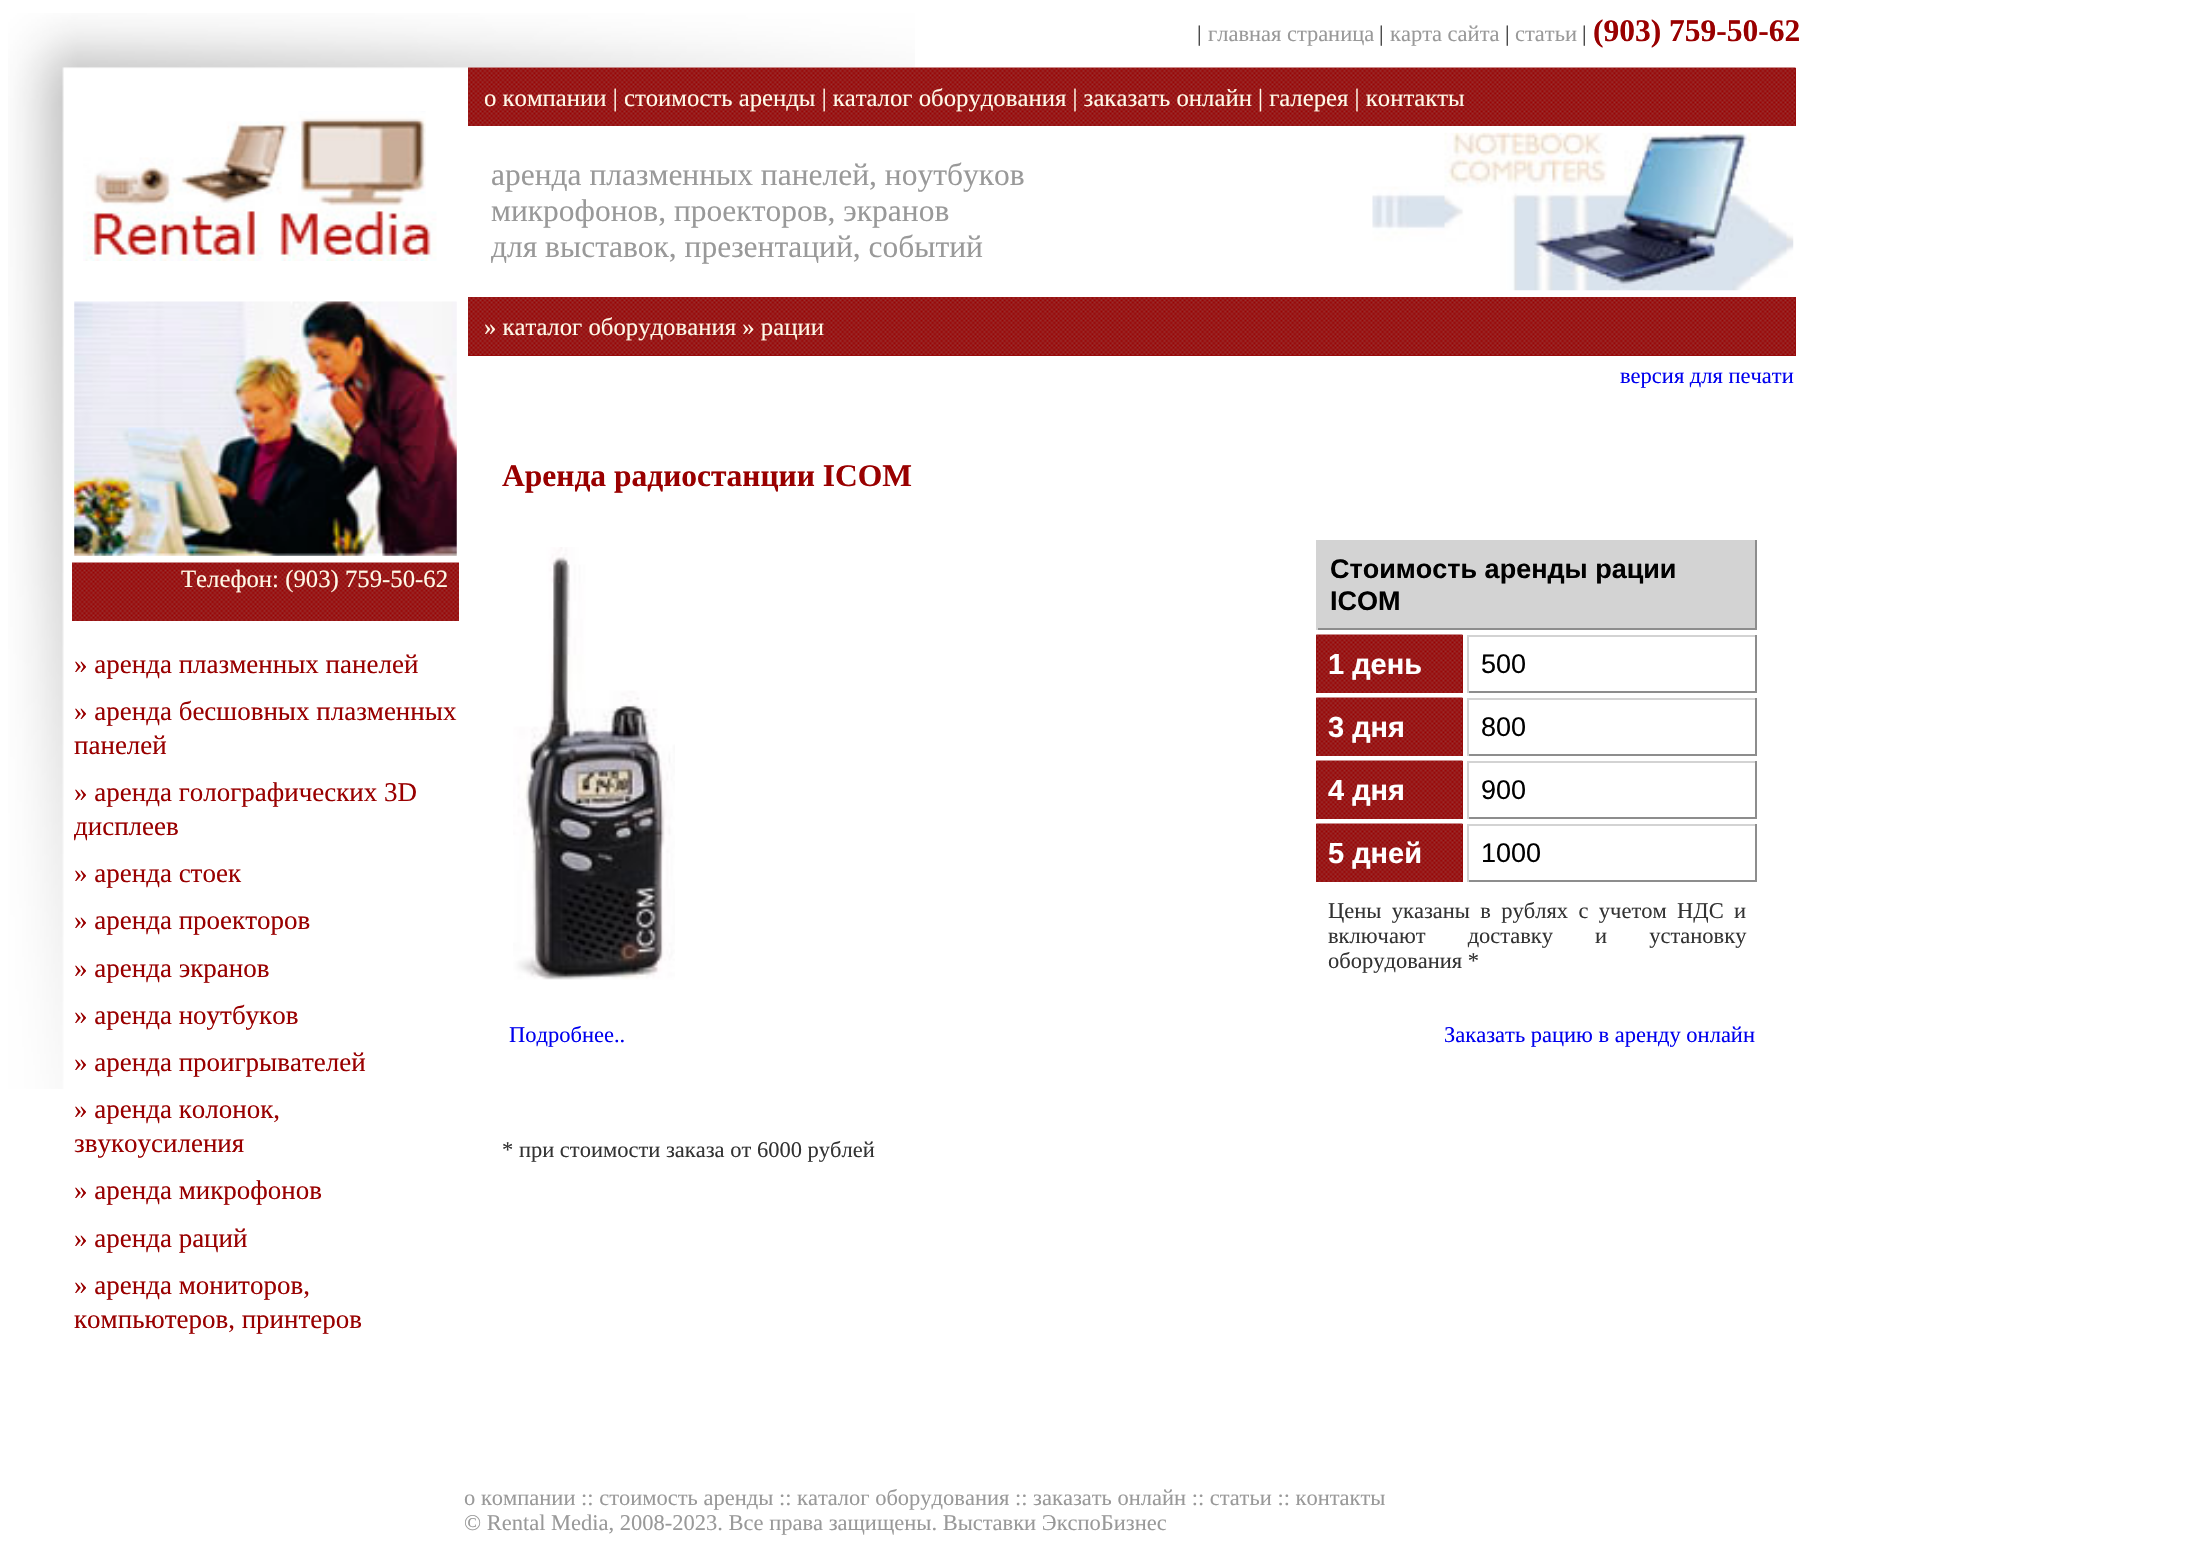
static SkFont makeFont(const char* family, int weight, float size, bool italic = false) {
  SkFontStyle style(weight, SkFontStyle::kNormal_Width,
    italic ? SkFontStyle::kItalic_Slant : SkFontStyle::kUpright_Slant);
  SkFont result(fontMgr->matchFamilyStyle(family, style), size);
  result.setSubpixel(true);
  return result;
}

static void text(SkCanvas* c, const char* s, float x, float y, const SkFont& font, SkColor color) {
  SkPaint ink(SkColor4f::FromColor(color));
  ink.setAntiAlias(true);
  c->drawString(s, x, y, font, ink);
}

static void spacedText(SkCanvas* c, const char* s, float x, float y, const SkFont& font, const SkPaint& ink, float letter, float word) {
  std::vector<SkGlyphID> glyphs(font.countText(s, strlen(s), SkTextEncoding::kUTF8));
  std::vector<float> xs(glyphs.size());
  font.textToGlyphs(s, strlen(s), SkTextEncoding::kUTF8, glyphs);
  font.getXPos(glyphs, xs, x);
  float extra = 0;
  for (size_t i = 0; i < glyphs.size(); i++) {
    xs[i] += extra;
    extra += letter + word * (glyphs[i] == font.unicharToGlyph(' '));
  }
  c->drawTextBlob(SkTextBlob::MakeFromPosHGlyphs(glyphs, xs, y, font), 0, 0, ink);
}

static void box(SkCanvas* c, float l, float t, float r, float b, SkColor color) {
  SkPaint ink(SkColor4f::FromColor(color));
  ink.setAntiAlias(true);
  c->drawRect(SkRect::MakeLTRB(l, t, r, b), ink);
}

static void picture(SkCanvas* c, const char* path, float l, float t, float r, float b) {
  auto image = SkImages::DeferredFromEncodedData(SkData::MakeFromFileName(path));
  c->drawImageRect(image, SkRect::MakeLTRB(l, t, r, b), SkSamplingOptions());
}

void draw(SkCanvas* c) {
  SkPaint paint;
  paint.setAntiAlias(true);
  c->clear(0xffffffff);
  picture(c, "img_01.png", 8, 13, 915, 1089);
  SkFont face1 = makeFont("Liberation Serif", 400, 22.5f);
  text(c, "|", 1197, 41, face1, 0xff333333);
  text(c, "главная страница", 1208, 41, face1, 0xff999999);
  text(c, "|", 1379, 41, face1, 0xff333333);
  text(c, "карта сайта", 1390, 41, face1, 0xff999999);
  text(c, "|", 1505, 41, face1, 0xff333333);
  text(c, "статьи", 1515, 41, face1, 0xff999999);
  text(c, "|", 1582, 41, face1, 0xff333333);
  SkFont face2 = makeFont("Liberation Serif", 700, 31.5f);
  text(c, "(903) 759-50-62", 1593, 41, face2, 0xff990000);
  picture(c, "img_02.png", 83, 111, 437, 261);
  picture(c, "img_03.png", 74, 301, 457, 556);
  picture(c, "img_04.png", 72, 562, 459, 621);
  SkFont face3 = makeFont("Liberation Serif", 400, 24.75f);
  text(c, "Телефон: (903) 759-50-62", 181, 587, face3, 0xfffff9e7);
  SkFont face4 = makeFont("Liberation Serif", 400, 27);
  text(c, "» аренда плазменных панелей", 74, 673, face4, 0xff990000);
  text(c, "» аренда бесшовных плазменных", 74, 720, face4, 0xff990000);
  text(c, "панелей", 74, 754, face4, 0xff990000);
  text(c, "» аренда голографических 3D", 74, 801, face4, 0xff990000);
  text(c, "дисплеев", 74, 835, face4, 0xff990000);
  text(c, "» аренда стоек", 74, 882, face4, 0xff990000);
  text(c, "» аренда проекторов", 74, 929, face4, 0xff990000);
  text(c, "» аренда экранов", 74, 977, face4, 0xff990000);
  text(c, "» аренда ноутбуков", 74, 1024, face4, 0xff990000);
  text(c, "» аренда проигрывателей", 74, 1071, face4, 0xff990000);
  text(c, "» аренда колонок,", 74, 1118, face4, 0xff990000);
  text(c, "звукоусиления", 74, 1152, face4, 0xff990000);
  text(c, "» аренда микрофонов", 74, 1199, face4, 0xff990000);
  text(c, "» аренда раций", 74, 1247, face4, 0xff990000);
  text(c, "» аренда мониторов,", 74, 1294, face4, 0xff990000);
  text(c, "компьютеров, принтеров", 74, 1328, face4, 0xff990000);
  box(c, 1795, 68, 1796, 126, 0xff990000);
  picture(c, "img_05.png", 468, 67, 1796, 126);
  text(c, "о компании | стоимость аренды | каталог оборудования | заказать онлайн | галерея | контакты", 484, 106, face3, 0xfffff9e7);
  SkFont face5 = makeFont("Liberation Serif", 400, 31.5f);
  text(c, "аренда плазменных панелей, ноутбуков", 491, 185, face5, 0xff999999);
  text(c, "микрофонов, проекторов, экранов", 491, 221, face5, 0xff999999);
  text(c, "для выставок, презентаций, событий", 491, 257, face5, 0xff999999);
  picture(c, "img_06.png", 1372, 132, 1794, 291);
  box(c, 468, 297, 1796, 356, 0xff990000);
  picture(c, "img_07.png", 468, 297, 1796, 356);
  text(c, "» каталог оборудования » рации", 484, 335, face3, 0xfffff9e7);
  text(c, "версия для печати", 1620, 383, face1, 0xff0000ee);
  text(c, "Аренда радиостанции ICOM", 502, 486, face2, 0xff990000);
  picture(c, "img_08.png", 513, 547, 675, 980);
  box(c, 1318, 540, 1755, 628, 0xffd3d3d3);
  box(c, 1755, 540, 1757, 630, 0xff8d8d8d);
  box(c, 1316, 628, 1757, 630, 0xff8d8d8d);
  box(c, 1316, 540, 1318, 630, 0xffd3d3d3);
  SkFont face6 = makeFont("Liberation Sans", 700, 27);
  text(c, "Стоимость аренды рации", 1330, 578, face6, 0xff000000);
  text(c, "ICOM", 1330, 610, face6, 0xff000000);
  box(c, 1316, 635, 1463, 693, 0xff990000);
  picture(c, "img_09.png", 1316, 634, 1463, 693);
  SkFont face7 = makeFont("Liberation Sans", 700, 29);
  text(c, "1 день", 1328, 674, face7, 0xffffffff);
  box(c, 1467, 635, 1757, 637, 0xffd3d3d3);
  box(c, 1755, 635, 1757, 693, 0xff8d8d8d);
  box(c, 1467, 691, 1757, 693, 0xff8d8d8d);
  box(c, 1467, 635, 1469, 693, 0xffd3d3d3);
  SkFont face8 = makeFont("Liberation Sans", 400, 27);
  text(c, "500", 1481, 673, face8, 0xff000000);
  box(c, 1316, 698, 1463, 756, 0xff990000);
  picture(c, "img_09.png", 1316, 697, 1463, 756);
  text(c, "3 дня", 1328, 737, face7, 0xffffffff);
  box(c, 1467, 698, 1757, 700, 0xffd3d3d3);
  box(c, 1755, 698, 1757, 756, 0xff8d8d8d);
  box(c, 1467, 754, 1757, 756, 0xff8d8d8d);
  box(c, 1467, 698, 1469, 756, 0xffd3d3d3);
  text(c, "800", 1481, 736, face8, 0xff000000);
  box(c, 1316, 761, 1463, 819, 0xff990000);
  picture(c, "img_10.png", 1316, 760, 1463, 819);
  text(c, "4 дня", 1328, 800, face7, 0xffffffff);
  box(c, 1467, 761, 1757, 763, 0xffd3d3d3);
  box(c, 1755, 761, 1757, 819, 0xff8d8d8d);
  box(c, 1467, 817, 1757, 819, 0xff8d8d8d);
  box(c, 1467, 761, 1469, 819, 0xffd3d3d3);
  text(c, "900", 1481, 799, face8, 0xff000000);
  box(c, 1316, 824, 1463, 882, 0xff990000);
  picture(c, "img_11.png", 1316, 823, 1463, 882);
  text(c, "5 дней", 1328, 863, face7, 0xffffffff);
  box(c, 1467, 824, 1757, 826, 0xffd3d3d3);
  box(c, 1755, 824, 1757, 882, 0xff8d8d8d);
  box(c, 1467, 880, 1757, 882, 0xff8d8d8d);
  box(c, 1467, 824, 1469, 882, 0xffd3d3d3);
  text(c, "1000", 1481, 862, face8, 0xff000000);
  paint.setColor(0xff333333);
  spacedText(c, "Цены указаны в рублях с учетом НДС и", 1328, 918, face1, paint, 0, 4.75f);
  spacedText(c, "включают доставку и установку", 1328, 943, face1, paint, 0, 36.5f);
  text(c, "оборудования *", 1328, 968, face1, 0xff333333);
  text(c, "Подробнее..", 509, 1042, face1, 0xff0000ee);
  text(c, "Заказать рацию в аренду онлайн", 1444, 1042, face1, 0xff0000ee);
  text(c, "* при стоимости заказа от 6000 рублей", 502, 1157, face1, 0xff333333);
  text(c, "о компании :: стоимость аренды :: каталог оборудования :: заказать онлайн :: статьи :: контакты", 464, 1505, face1, 0xff999999);
  text(c, "© Rental Media, 2008-2023. Все права защищены. Выставки ЭкспоБизнес", 464, 1530, face1, 0xff999999);
}
